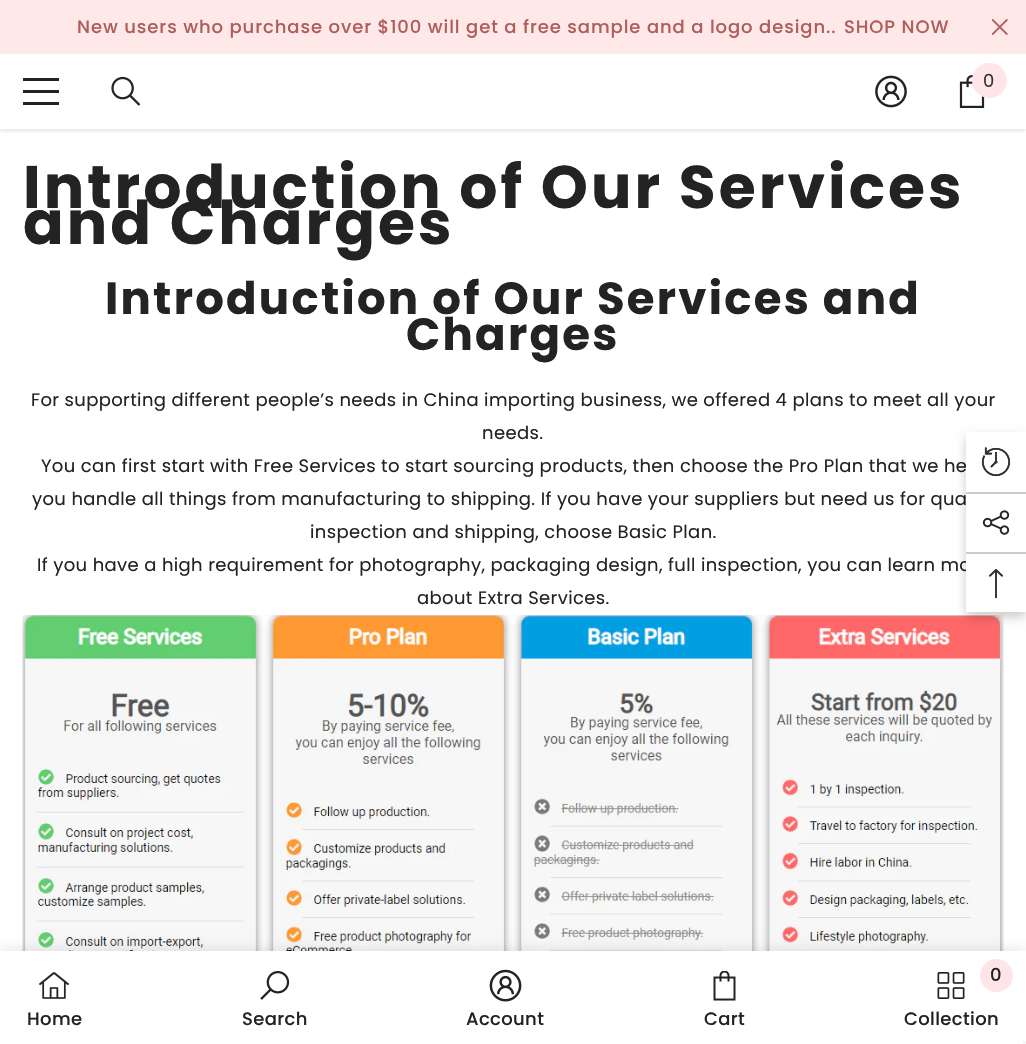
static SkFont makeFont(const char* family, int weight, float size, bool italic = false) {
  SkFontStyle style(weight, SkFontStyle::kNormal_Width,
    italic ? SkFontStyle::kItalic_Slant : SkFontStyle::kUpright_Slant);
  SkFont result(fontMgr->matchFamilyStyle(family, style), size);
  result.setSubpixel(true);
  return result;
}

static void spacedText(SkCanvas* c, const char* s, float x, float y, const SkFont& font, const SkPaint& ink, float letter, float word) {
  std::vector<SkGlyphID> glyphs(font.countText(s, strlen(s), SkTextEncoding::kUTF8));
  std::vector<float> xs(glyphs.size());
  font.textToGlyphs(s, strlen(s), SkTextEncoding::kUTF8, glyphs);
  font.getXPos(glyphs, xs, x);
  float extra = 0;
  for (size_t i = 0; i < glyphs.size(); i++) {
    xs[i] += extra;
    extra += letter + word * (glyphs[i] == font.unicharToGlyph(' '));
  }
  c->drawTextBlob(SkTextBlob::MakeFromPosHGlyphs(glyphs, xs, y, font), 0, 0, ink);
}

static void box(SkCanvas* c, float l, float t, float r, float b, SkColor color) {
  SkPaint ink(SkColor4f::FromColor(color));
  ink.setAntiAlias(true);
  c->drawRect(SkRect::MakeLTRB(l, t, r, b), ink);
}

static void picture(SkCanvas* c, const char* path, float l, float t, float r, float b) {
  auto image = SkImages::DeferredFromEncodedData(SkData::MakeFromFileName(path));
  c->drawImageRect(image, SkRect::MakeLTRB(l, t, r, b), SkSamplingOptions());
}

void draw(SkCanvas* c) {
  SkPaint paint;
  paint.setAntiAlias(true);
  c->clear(0xffffffff);
  box(c, 0, 0, 1026, 54, 0xffffe8e8);
  SkFont face1 = makeFont("Poppins", 500, 18);
  paint.setColor(0xffb05d5d);
  spacedText(c, "New users who purchase over $100 will get a free sample and a logo design..", 77, 33, face1, paint, 0.9f, 0);
  spacedText(c, "SHOP NOW", 844, 33, face1, paint, 0.9f, 0);
  picture(c, "img_01.png", 991, 19, 1008, 35);
  c->save();
  c->clipRect(SkRect::MakeLTRB(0, 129, 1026, 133));
  paint.setColor(0x1a000000);
  paint.setMaskFilter(SkMaskFilter::MakeBlur(kNormal_SkBlurStyle, 2));
  c->drawRect(SkRect::MakeLTRB(0, 56, 1026, 131), paint);
  paint.setMaskFilter(nullptr);
  c->restore();
  box(c, 23, 90, 59, 93, 0xff232323);
  box(c, 23, 78, 59, 81, 0xff232323);
  box(c, 23, 102, 59, 105, 0xff232323);
  picture(c, "img_02.png", 111, 76, 141, 106);
  picture(c, "img_03.png", 875, 75, 907, 108);
  picture(c, "img_04.png", 959, 75, 985, 108);
  paint.setColor(0xffffe5e8);
  c->drawCircle(989.5f, 80.5f, 17.5f, paint);
  SkFont face2 = makeFont("Poppins", 400, 18);
  paint.setColor(0xff323232);
  spacedText(c, "0", 983, 87, face2, paint, 0.36f, 0);
  SkFont face3 = makeFont("Poppins", 700, 60);
  paint.setColor(0xff232323);
  spacedText(c, "Introduction of Our Services", 23, 208, face3, paint, 3, 0);
  spacedText(c, "and Charges", 23, 244, face3, paint, 3, 0);
  SkFont face4 = makeFont("Poppins", 700, 45);
  spacedText(c, "Introduction of Our Services and", 105, 314, face4, paint, 2.25f, 0);
  spacedText(c, "Charges", 406, 350, face4, paint, 2.25f, 0);
  spacedText(c, "For supporting different people’s needs in China importing business, we offered 4 plans to meet all your", 31, 406, face2, paint, 0.36f, 0);
  spacedText(c, "needs.", 482, 439, face2, paint, 0.36f, 0);
  spacedText(c, "You can first start with Free Services to start sourcing products, then choose the Pro Plan that we he", 41, 472, face2, paint, 0.36f, 0);
  spacedText(c, "you handle all things from manufacturing to shipping. If you have your suppliers but need us for qua", 32, 505, face2, paint, 0.36f, 0);
  spacedText(c, "inspection and shipping, choose Basic Plan.", 310, 538, face2, paint, 0.36f, 0);
  spacedText(c, "If you have a high requirement for photography, packaging design, full inspection, you can learn mo", 37, 571, face2, paint, 0.36f, 0);
  spacedText(c, "about Extra Services.", 417, 604, face2, paint, 0.36f, 0);
  picture(c, "img_05.png", 22, 615, 1004, 951);
  paint.setColor(0x1f000000);
  paint.setMaskFilter(SkMaskFilter::MakeBlur(kNormal_SkBlurStyle, 7));
  c->drawRect(SkRect::MakeLTRB(0, 951, 1026, 1044), paint);
  paint.setMaskFilter(nullptr);
  box(c, 0, 951, 1026, 1044, 0xffffffff);
  picture(c, "img_06.png", 260, 971, 290, 1000);
  paint.setColor(0xff232323);
  spacedText(c, "Search", 242, 1025, face1, paint, 0.36f, 0);
  picture(c, "img_07.png", 713, 971, 736, 1001);
  paint.setColor(0xffffe5e8);
  c->drawCircle(996.5f, 975.5f, 16.5f, paint);
  paint.setColor(0xff232323);
  spacedText(c, "0", 990, 981, face1, paint, 0.36f, 0);
  spacedText(c, "Cart", 704, 1025, face1, paint, 0.36f, 0);
  picture(c, "img_08.png", 39, 972, 69, 999);
  spacedText(c, "Home", 27, 1025, face1, paint, 0.36f, 0);
  picture(c, "img_09.png", 489, 969, 522, 1002);
  spacedText(c, "Account", 466, 1025, face1, paint, 0.36f, 0);
  picture(c, "img_10.png", 937, 972, 965, 999);
  spacedText(c, "Collection", 904, 1025, face1, paint, 0.36f, 0);
  paint.setColor(0x33000000);
  paint.setMaskFilter(SkMaskFilter::MakeBlur(kNormal_SkBlurStyle, 5));
  c->drawRect(SkRect::MakeLTRB(966, 437, 1026, 617), paint);
  paint.setMaskFilter(nullptr);
  box(c, 966, 432, 1026, 612, 0xffffffff);
  picture(c, "img_11.png", 981, 447, 1011, 477);
  box(c, 966, 492, 1026, 494, 0xffcccccc);
  picture(c, "img_12.png", 982, 510, 1010, 535);
  box(c, 966, 552, 1026, 554, 0xffcccccc);
  picture(c, "img_13.png", 989, 569, 1003, 599);
  box(c, 1023, 1041, 1026, 1044, 0xfff5f5f5);
}
